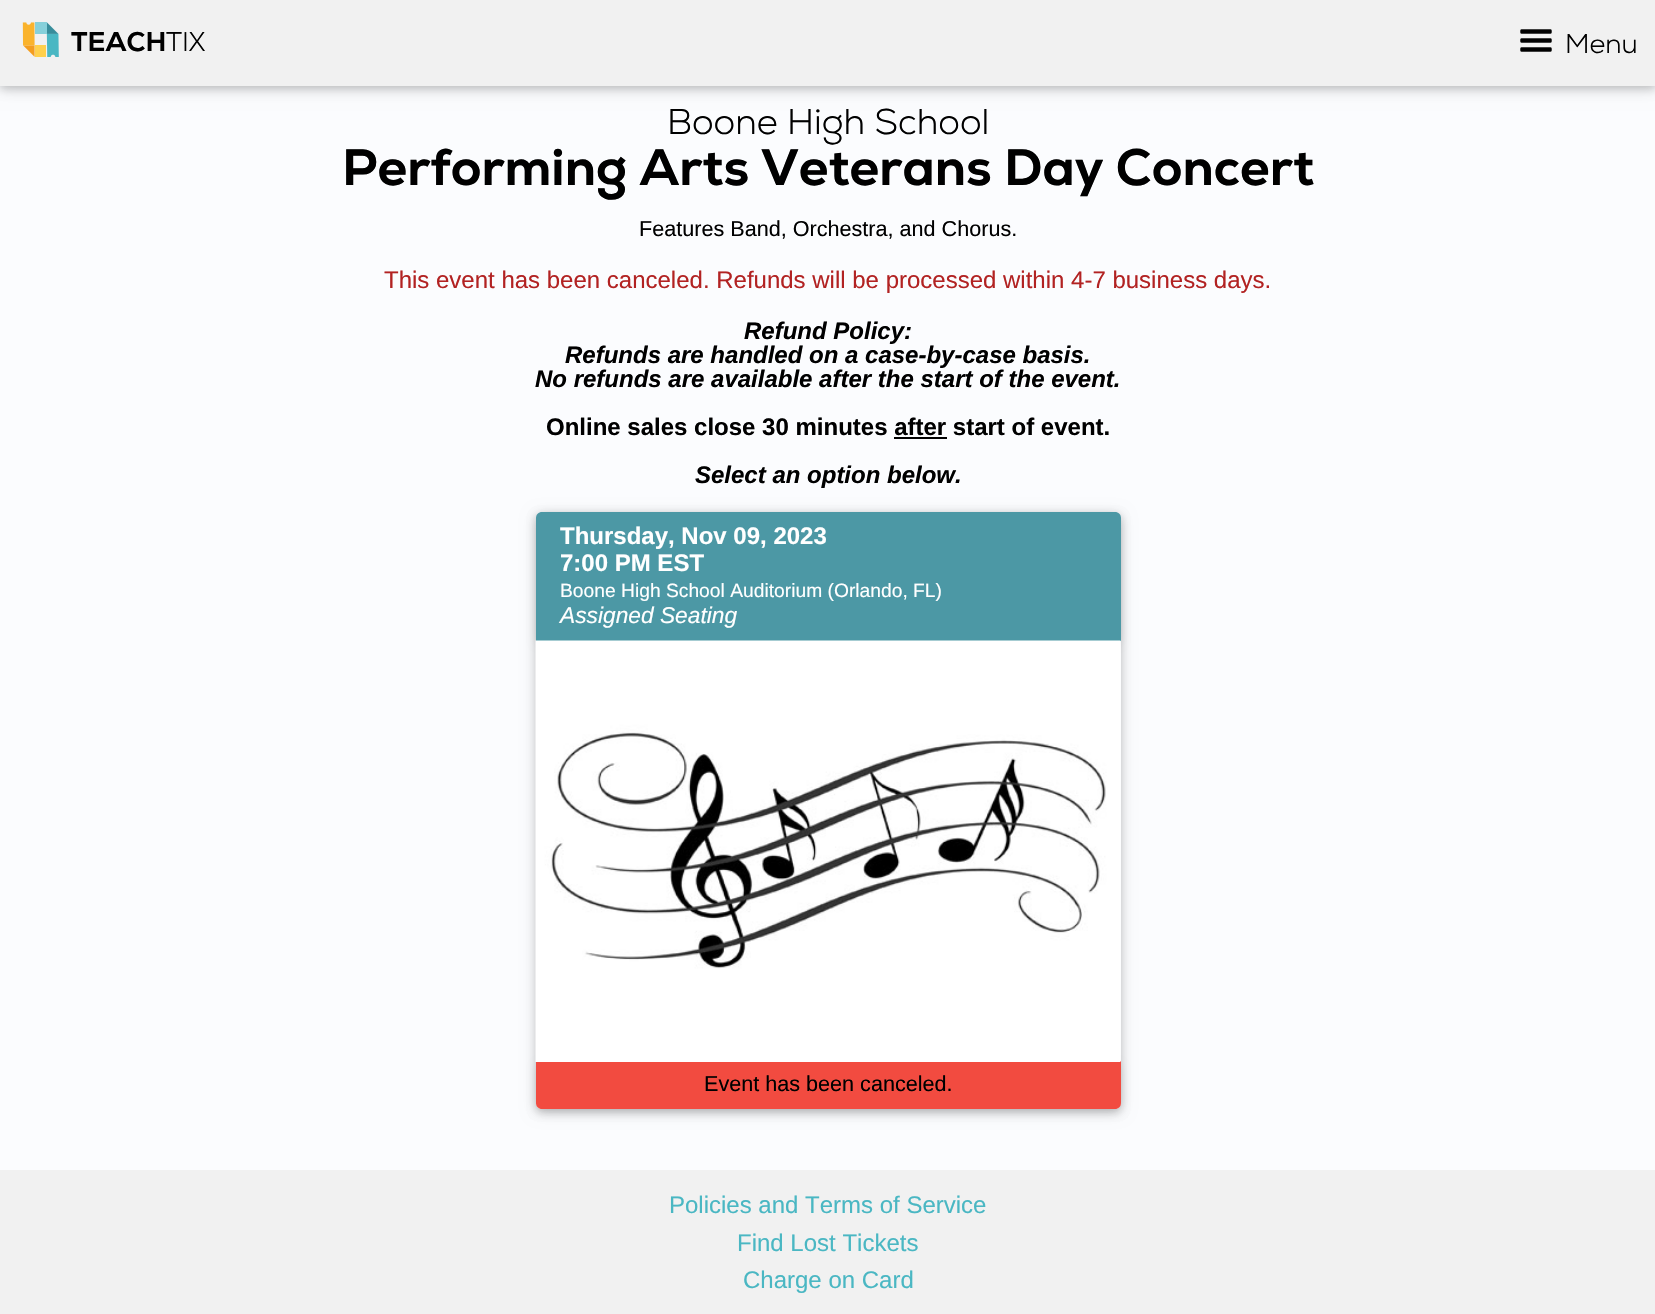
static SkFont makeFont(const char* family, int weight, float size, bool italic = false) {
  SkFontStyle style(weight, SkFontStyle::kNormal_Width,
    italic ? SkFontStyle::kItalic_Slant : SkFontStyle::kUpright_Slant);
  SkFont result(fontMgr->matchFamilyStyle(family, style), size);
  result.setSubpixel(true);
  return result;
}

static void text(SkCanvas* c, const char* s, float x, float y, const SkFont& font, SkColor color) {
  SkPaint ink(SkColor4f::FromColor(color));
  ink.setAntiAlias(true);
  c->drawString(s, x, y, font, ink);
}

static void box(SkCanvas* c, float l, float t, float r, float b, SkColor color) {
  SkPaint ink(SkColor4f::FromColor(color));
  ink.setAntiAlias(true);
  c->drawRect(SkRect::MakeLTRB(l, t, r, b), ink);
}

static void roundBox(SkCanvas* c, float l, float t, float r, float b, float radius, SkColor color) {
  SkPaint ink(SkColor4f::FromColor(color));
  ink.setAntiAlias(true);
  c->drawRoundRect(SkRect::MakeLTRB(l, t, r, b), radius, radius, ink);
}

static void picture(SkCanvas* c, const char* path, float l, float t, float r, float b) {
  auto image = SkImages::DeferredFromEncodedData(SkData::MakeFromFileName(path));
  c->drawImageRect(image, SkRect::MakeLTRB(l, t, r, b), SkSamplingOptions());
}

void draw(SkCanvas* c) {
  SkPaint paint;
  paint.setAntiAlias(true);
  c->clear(0xfffbfcfe);
  paint.setColor(0x1f000000);
  paint.setMaskFilter(SkMaskFilter::MakeBlur(kNormal_SkBlurStyle, 7.5f));
  c->drawRect(SkRect::MakeLTRB(0, 3, 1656, 89), paint);
  paint.setMaskFilter(nullptr);
  paint.setColor(0x29000000);
  paint.setMaskFilter(SkMaskFilter::MakeBlur(kNormal_SkBlurStyle, 4));
  c->drawRect(SkRect::MakeLTRB(0, 3, 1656, 89), paint);
  paint.setMaskFilter(nullptr);
  box(c, 0, 0, 1655, 86, 0xfff1f1f1);
  picture(c, "img_01.png", 22, 22, 59, 57);
  SkFont face1 = makeFont("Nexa", 800, 27);
  text(c, "TEACH", 71, 51, face1, 0xff000000);
  SkFont face2 = makeFont("Nexa", 300, 27);
  text(c, "TIX", 166, 51, face2, 0xff000000);
  picture(c, "img_02.png", 1520, 29, 1552, 52);
  text(c, "Menu", 1565, 53, face2, 0xff000000);
  SkFont face3 = makeFont("Nexa", 300, 35.75f);
  text(c, "Boone High School", 667, 134, face3, 0xff000000);
  SkFont face4 = makeFont("Nexa", 800, 51);
  text(c, "Performing Arts Veterans Day Concert", 342, 185, face4, 0xff000000);
  SkFont face5 = makeFont("Liberation Sans", 400, 21.6f);
  text(c, "Features Band, Orchestra, and Chorus.", 639, 236, face5, 0xff000000);
  SkFont face6 = makeFont("Liberation Sans", 400, 24);
  text(c, "This event has been canceled. Refunds will be processed within 4-7 business days.", 384, 288, face6, 0xffb22222);
  SkFont face7 = makeFont("Liberation Sans", 700, 24, true);
  text(c, "Refund Policy:", 744, 339, face7, 0xff000000);
  text(c, "Refunds are handled on a case-by-case basis.", 565, 363, face7, 0xff000000);
  text(c, "No refunds are available after the start of the event.", 535, 387, face7, 0xff000000);
  SkFont face8 = makeFont("Liberation Sans", 700, 24);
  text(c, "Online sales close 30 minutes after start of event.", 546, 435, face8, 0xff000000);
  box(c, 894, 437, 947, 439, 0xff000000);
  text(c, "Select an option below.", 695, 483, face7, 0xff000000);
  paint.setColor(0x1f000000);
  paint.setMaskFilter(SkMaskFilter::MakeBlur(kNormal_SkBlurStyle, 7.5f));
  c->drawRoundRect(SkRect::MakeLTRB(536, 515, 1121, 1112), 6, 6, paint);
  paint.setMaskFilter(nullptr);
  paint.setColor(0x29000000);
  paint.setMaskFilter(SkMaskFilter::MakeBlur(kNormal_SkBlurStyle, 4));
  c->drawRoundRect(SkRect::MakeLTRB(536, 515, 1121, 1112), 6, 6, paint);
  paint.setMaskFilter(nullptr);
  roundBox(c, 536, 512, 1121, 1109, 6, 0xfffbfcfe);
  c->save();
  c->clipPath(SkPathBuilder(SkPathFillType::kEvenOdd).moveTo(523, 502).lineTo(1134, 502).lineTo(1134, 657).lineTo(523, 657).close().moveTo(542, 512).lineTo(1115, 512).cubicTo(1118.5f, 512, 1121, 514.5f, 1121, 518).lineTo(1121, 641).lineTo(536, 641).lineTo(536, 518).cubicTo(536, 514.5f, 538.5f, 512, 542, 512).close().detach(), true);
  paint.setColor(0x14000000);
  paint.setMaskFilter(SkMaskFilter::MakeBlur(kNormal_SkBlurStyle, 4));
  c->drawRoundRect(SkRect::MakeLTRB(536, 515, 1121, 644), 6, 6, paint);
  paint.setMaskFilter(nullptr);
  c->restore();
  paint.setColor(0xe6388d9b);
  c->drawPath(SkPathBuilder().moveTo(542, 512).lineTo(1115, 512).cubicTo(1118.5f, 512, 1121, 514.5f, 1121, 518).lineTo(1121, 641).lineTo(536, 641).lineTo(536, 518).cubicTo(536, 514.5f, 538.5f, 512, 542, 512).close().detach(), paint);
  text(c, "Thursday, Nov 09, 2023", 560, 544, face8, 0xffffffff);
  text(c, "7:00 PM EST", 560, 571, face8, 0xffffffff);
  SkFont face9 = makeFont("Liberation Sans", 400, 19.25f);
  text(c, "Boone High School Auditorium (Orlando, FL)", 560, 597, face9, 0xffffffff);
  SkFont face10 = makeFont("Liberation Sans", 400, 22.75f, true);
  text(c, "Assigned Seating", 560, 623, face10, 0xffffffff);
  c->save();
  c->clipPath(SkPathBuilder(SkPathFillType::kEvenOdd).moveTo(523, 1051).lineTo(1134, 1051).lineTo(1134, 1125).lineTo(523, 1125).close().moveTo(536, 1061).lineTo(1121, 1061).lineTo(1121, 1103).cubicTo(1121, 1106.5f, 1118.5f, 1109, 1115, 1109).lineTo(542, 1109).cubicTo(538.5f, 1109, 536, 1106.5f, 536, 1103).close().detach(), true);
  paint.setColor(0x14000000);
  paint.setMaskFilter(SkMaskFilter::MakeBlur(kNormal_SkBlurStyle, 4));
  c->drawRoundRect(SkRect::MakeLTRB(536, 1064, 1121, 1112), 6, 6, paint);
  paint.setMaskFilter(nullptr);
  c->restore();
  paint.setColor(0xe6f1372b);
  c->drawPath(SkPathBuilder().moveTo(536, 1061).lineTo(1121, 1061).lineTo(1121, 1103).cubicTo(1121, 1106.5f, 1118.5f, 1109, 1115, 1109).lineTo(542, 1109).cubicTo(538.5f, 1109, 536, 1106.5f, 536, 1103).close().detach(), paint);
  picture(c, "img_03.png", 535, 640, 1121, 1062);
  text(c, "Event has been canceled.", 704, 1091, face5, 0xff000000);
  box(c, 0, 1170, 1655, 1314, 0xfff1f1f1);
  text(c, "Policies and Terms of Service", 669, 1213, face6, 0xff4ab7c3);
  text(c, "Find Lost Tickets", 737, 1251, face6, 0xff4ab7c3);
  text(c, "Charge on Card", 743, 1288, face6, 0xff4ab7c3);
}
